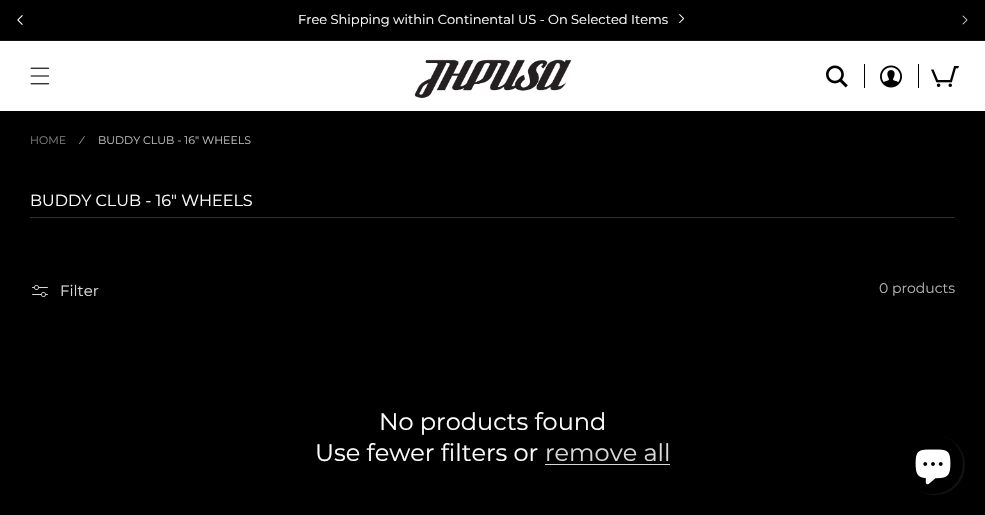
static SkFont makeFont(const char* family, int weight, float size, bool italic = false) {
  SkFontStyle style(weight, SkFontStyle::kNormal_Width,
    italic ? SkFontStyle::kItalic_Slant : SkFontStyle::kUpright_Slant);
  SkFont result(fontMgr->matchFamilyStyle(family, style), size);
  result.setSubpixel(true);
  return result;
}

static void text(SkCanvas* c, const char* s, float x, float y, const SkFont& font, SkColor color) {
  SkPaint ink(SkColor4f::FromColor(color));
  ink.setAntiAlias(true);
  c->drawString(s, x, y, font, ink);
}

static void box(SkCanvas* c, float l, float t, float r, float b, SkColor color) {
  SkPaint ink(SkColor4f::FromColor(color));
  ink.setAntiAlias(true);
  c->drawRect(SkRect::MakeLTRB(l, t, r, b), ink);
}

static void picture(SkCanvas* c, const char* path, float l, float t, float r, float b) {
  auto image = SkImages::DeferredFromEncodedData(SkData::MakeFromFileName(path));
  c->drawImageRect(image, SkRect::MakeLTRB(l, t, r, b), SkSamplingOptions());
}

void draw(SkCanvas* c) {
  SkPaint paint;
  paint.setAntiAlias(true);
  c->clear(0xff000000);
  picture(c, "img_01.png", 17, 15, 23, 25);
  box(c, 0, 40, 985, 41, 0xff141414);
  SkFont face1 = makeFont("Montserrat", 400, 13);
  text(c, "Free Shipping within Continental US - On Selected Items", 298, 24, face1, 0xffffffff);
  picture(c, "img_02.png", 679, 14, 684, 23);
  picture(c, "img_03.png", 962, 15, 968, 25);
  box(c, 0, 41, 985, 111, 0xffffffff);
  picture(c, "img_04.png", 30, 67, 50, 85);
  picture(c, "img_05.png", 414, 59, 572, 99);
  picture(c, "img_06.png", 826, 65, 848, 88);
  box(c, 864, 64, 865, 88, 0xff000000);
  picture(c, "img_07.png", 880, 65, 902, 88);
  box(c, 918, 64, 919, 88, 0xff000000);
  picture(c, "img_08.png", 931, 66, 959, 87);
  SkFont face2 = makeFont("Montserrat", 400, 11);
  text(c, "HOME", 30, 144, face2, 0xff808080);
  text(c, "⁄", 81, 144, face2, 0xffbfbfbf);
  text(c, "BUDDY CLUB - 16\" WHEELS", 98, 144, face2, 0xffbfbfbf);
  box(c, 30, 217, 955, 218, 0xff2f2f2f);
  SkFont face3 = makeFont("Montserrat", 400, 16);
  text(c, "BUDDY CLUB - 16\" WHEELS", 30, 206, face3, 0xffffffff);
  picture(c, "img_09.png", 32, 285, 48, 297);
  SkFont face4 = makeFont("Montserrat", 400, 15);
  text(c, "Filter", 60, 296, face4, 0xffd9d9d9);
  SkFont face5 = makeFont("Montserrat", 400, 14);
  text(c, "0 products", 879, 293, face5, 0xffb3b3b3);
  SkFont face6 = makeFont("Montserrat", 400, 24);
  text(c, "No products found", 379, 430, face6, 0xffffffff);
  text(c, "Use fewer filters or", 315, 461, face6, 0xffffffff);
  text(c, "remove all", 545, 461, face6, 0xffd9d9d9);
  box(c, 545, 464, 670, 465, 0xffd9d9d9);
  paint.setColor(0xff121212);
  c->drawCircle(935, 465, 30, paint);
  paint.setColor(0xff000000);
  c->drawCircle(933, 464, 30, paint);
  picture(c, "img_10.png", 915, 449, 951, 485);
}
